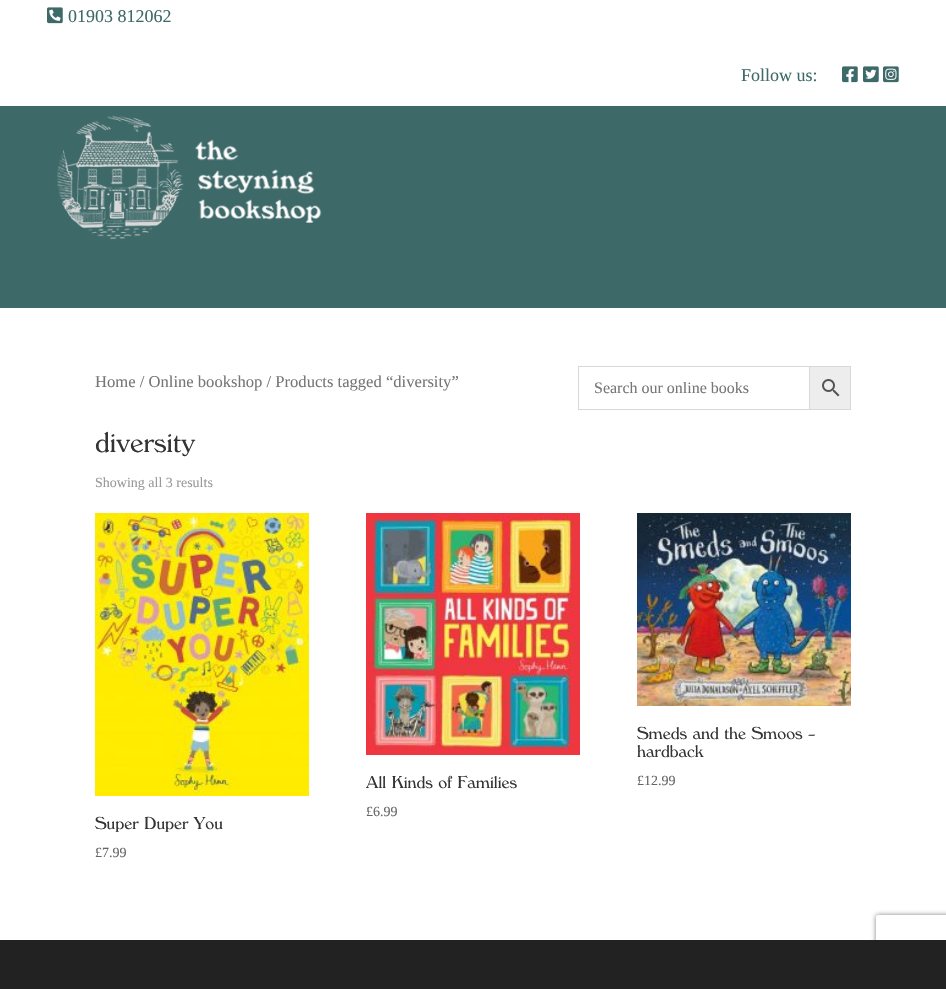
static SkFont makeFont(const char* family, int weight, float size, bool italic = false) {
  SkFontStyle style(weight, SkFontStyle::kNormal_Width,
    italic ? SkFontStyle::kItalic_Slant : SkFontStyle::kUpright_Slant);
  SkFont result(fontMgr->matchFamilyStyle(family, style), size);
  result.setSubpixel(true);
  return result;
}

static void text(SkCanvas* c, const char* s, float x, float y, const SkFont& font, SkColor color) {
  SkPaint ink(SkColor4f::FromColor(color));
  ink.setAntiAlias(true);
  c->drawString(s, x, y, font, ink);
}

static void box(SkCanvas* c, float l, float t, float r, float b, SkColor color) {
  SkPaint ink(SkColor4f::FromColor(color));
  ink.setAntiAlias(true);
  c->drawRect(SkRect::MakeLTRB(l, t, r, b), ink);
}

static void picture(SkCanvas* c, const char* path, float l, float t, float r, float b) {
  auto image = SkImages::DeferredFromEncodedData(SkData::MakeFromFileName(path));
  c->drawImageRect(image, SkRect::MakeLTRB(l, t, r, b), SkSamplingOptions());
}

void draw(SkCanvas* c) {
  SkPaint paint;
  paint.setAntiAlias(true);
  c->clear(0xffffffff);
  picture(c, "img_01.png", 47, 7, 63, 24);
  SkFont face1 = makeFont("Liberation Serif", 400, 18);
  text(c, "01903 812062", 68, 22, face1, 0xff3d6968);
  text(c, "Follow us:", 741, 81, face1, 0xff3d6968);
  picture(c, "img_02.png", 842, 66, 858, 83);
  picture(c, "img_03.png", 863, 66, 879, 83);
  picture(c, "img_04.png", 883, 66, 899, 83);
  box(c, 0, 106, 946, 308, 0xff3d6968);
  picture(c, "img_05.png", 57, 115, 322, 240);
  SkFont face2 = makeFont("Liberation Serif", 400, 16.6f);
  text(c, "Home / Online bookshop / Products tagged “diversity”", 95, 387, face2, 0xff767676);
  paint.setColor(0xffededed);
  c->drawRect(SkRect::MakeLTRB(809.5f, 366.5f, 850.5f, 409.5f), paint);
  paint.setStyle(SkPaint::kStroke_Style);
  paint.setStrokeWidth(1);
  paint.setColor(0xffd8d8d8);
  c->drawRect(SkRect::MakeLTRB(809.5f, 366.5f, 850.5f, 409.5f), paint);
  c->drawRect(SkRect::MakeLTRB(578.5f, 366.5f, 809.5f, 409.5f), paint);
  SkFont face3 = makeFont("Liberation Serif", 400, 16);
  text(c, "Search our online books", 594, 393, face3, 0xff767676);
  picture(c, "img_06.png", 822, 379, 840, 397);
  SkFont face4 = makeFont("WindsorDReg", 400, 30);
  text(c, "diversity", 95, 452, face4, 0xff333333);
  SkFont face5 = makeFont("Liberation Serif", 400, 14);
  text(c, "Showing all 3 results", 95, 487, face5, 0xff999999);
  picture(c, "img_07.png", 637, 513, 851, 706);
  SkFont face6 = makeFont("WindsorDReg", 400, 18);
  text(c, "Smeds and the Smoos –", 637, 739, face6, 0xff333333);
  text(c, "hardback", 637, 757, face6, 0xff333333);
  text(c, "£12.99", 637, 785, face5, 0xff666666);
  picture(c, "img_08.png", 366, 513, 580, 755);
  text(c, "All Kinds of Families", 366, 788, face6, 0xff333333);
  text(c, "£6.99", 366, 816, face5, 0xff666666);
  picture(c, "img_09.png", 95, 513, 309, 796);
  text(c, "Super Duper You", 95, 829, face6, 0xff333333);
  text(c, "£7.99", 95, 857, face5, 0xff666666);
  c->save();
  c->clipPath(SkPathBuilder(SkPathFillType::kEvenOdd).moveTo(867, 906).lineTo(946, 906).lineTo(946, 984).lineTo(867, 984).close().moveTo(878, 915).lineTo(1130, 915).cubicTo(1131, 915, 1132, 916, 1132, 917).lineTo(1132, 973).cubicTo(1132, 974, 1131, 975, 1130, 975).lineTo(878, 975).cubicTo(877, 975, 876, 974, 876, 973).lineTo(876, 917).cubicTo(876, 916, 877, 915, 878, 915).close().detach(), true);
  paint.setStyle(SkPaint::kFill_Style);
  paint.setColor(0xff808080);
  paint.setMaskFilter(SkMaskFilter::MakeBlur(kNormal_SkBlurStyle, 2.5f));
  c->drawRoundRect(SkRect::MakeLTRB(876, 915, 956, 975), 2, 2, paint);
  paint.setMaskFilter(nullptr);
  c->restore();
  box(c, 0, 940, 946, 989, 0xff222222);
}
